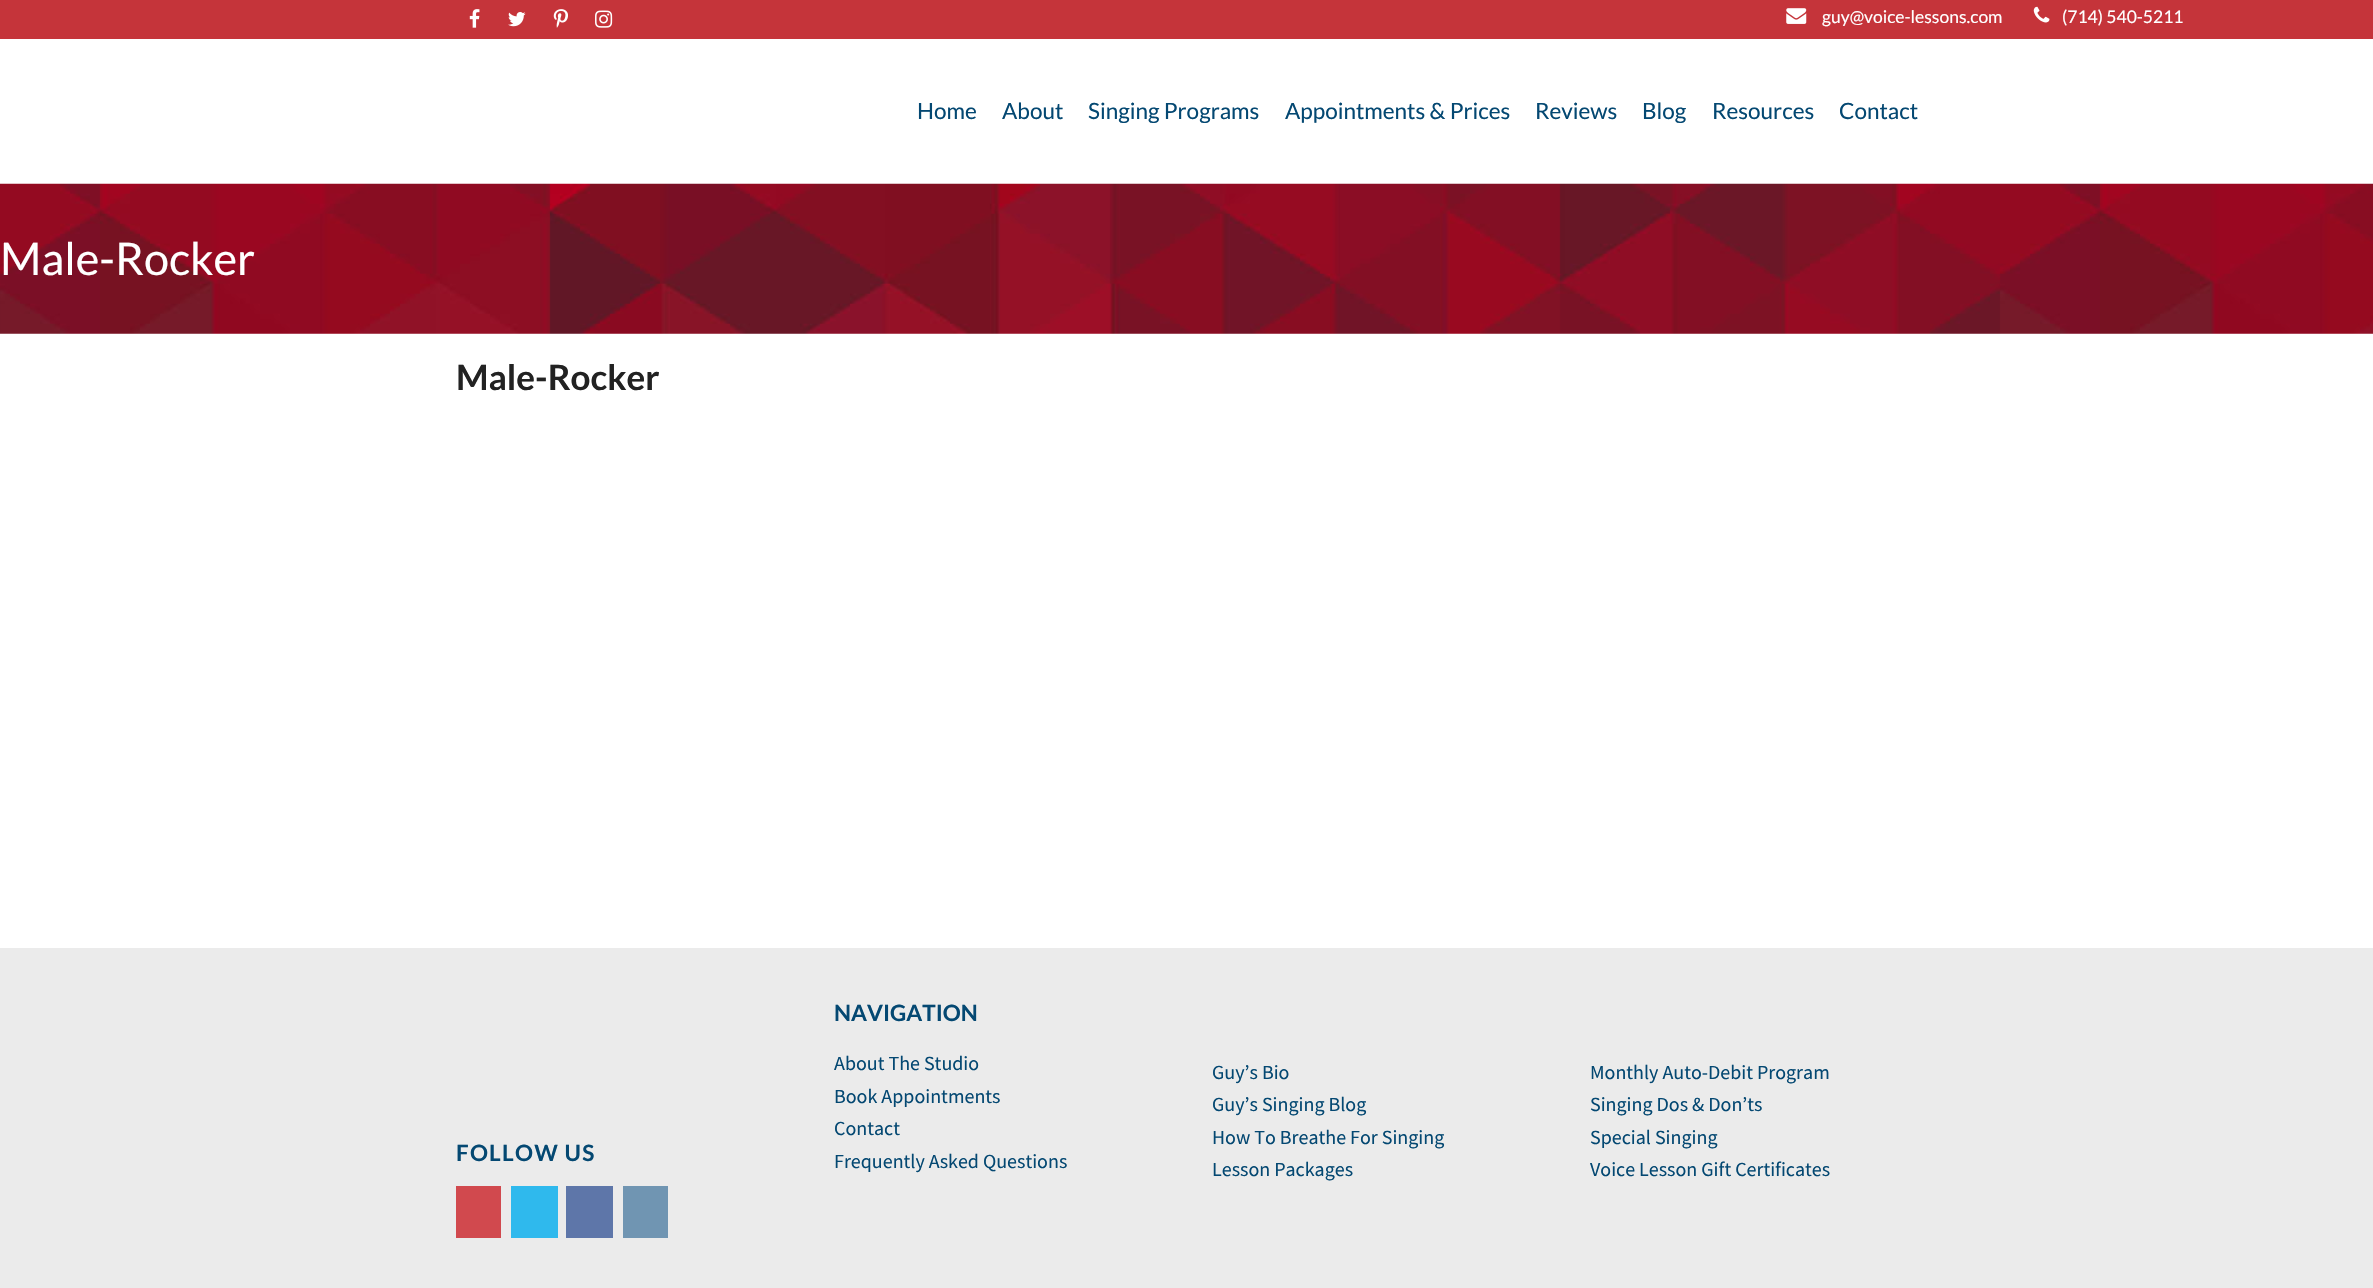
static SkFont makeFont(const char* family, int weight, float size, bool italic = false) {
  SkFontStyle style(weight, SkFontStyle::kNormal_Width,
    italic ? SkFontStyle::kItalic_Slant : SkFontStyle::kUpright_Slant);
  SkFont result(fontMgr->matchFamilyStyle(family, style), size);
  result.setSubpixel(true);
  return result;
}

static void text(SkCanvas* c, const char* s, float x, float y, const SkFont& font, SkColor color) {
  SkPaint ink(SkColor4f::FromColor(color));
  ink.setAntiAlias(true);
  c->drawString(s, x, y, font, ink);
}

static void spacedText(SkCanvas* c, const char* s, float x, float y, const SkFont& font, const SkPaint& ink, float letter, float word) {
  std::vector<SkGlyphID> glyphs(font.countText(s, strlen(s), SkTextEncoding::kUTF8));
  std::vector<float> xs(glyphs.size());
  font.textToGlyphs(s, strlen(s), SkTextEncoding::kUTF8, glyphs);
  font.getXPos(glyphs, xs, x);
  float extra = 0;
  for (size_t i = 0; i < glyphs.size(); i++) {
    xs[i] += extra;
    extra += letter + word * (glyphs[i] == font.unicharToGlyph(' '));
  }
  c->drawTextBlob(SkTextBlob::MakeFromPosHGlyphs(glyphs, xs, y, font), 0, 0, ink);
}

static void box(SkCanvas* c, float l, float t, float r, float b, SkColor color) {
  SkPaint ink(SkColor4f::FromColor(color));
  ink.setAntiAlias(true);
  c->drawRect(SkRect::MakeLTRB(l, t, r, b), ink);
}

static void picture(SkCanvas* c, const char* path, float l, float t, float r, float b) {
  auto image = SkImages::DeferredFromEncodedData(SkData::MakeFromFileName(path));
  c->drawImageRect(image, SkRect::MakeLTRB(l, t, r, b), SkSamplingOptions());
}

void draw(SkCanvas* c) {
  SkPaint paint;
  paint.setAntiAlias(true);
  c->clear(0xffffffff);
  box(c, 0, 0, 2373, 39, 0xffc5343a);
  picture(c, "img_01.png", 469, 9, 480, 28);
  picture(c, "img_02.png", 508, 12, 526, 27);
  picture(c, "img_03.png", 553, 9, 568, 28);
  picture(c, "img_04.png", 595, 10, 613, 28);
  picture(c, "img_05.png", 1786, 8, 1807, 24);
  SkFont face1 = makeFont("Lato", 400, 17.5f);
  text(c, "guy@voice-lessons.com", 1822, 23, face1, 0xffffffff);
  picture(c, "img_06.png", 2033, 6, 2050, 23);
  text(c, "(714) 540-5211", 2062, 23, face1, 0xffffffff);
  SkFont face2 = makeFont("Lato", 400, 22.5f);
  text(c, "Home", 917, 119, face2, 0xff044872);
  text(c, "About", 1002, 119, face2, 0xff044872);
  text(c, "Singing Programs", 1088, 119, face2, 0xff044872);
  text(c, "Appointments & Prices", 1285, 119, face2, 0xff044872);
  text(c, "Reviews", 1535, 119, face2, 0xff044872);
  text(c, "Blog", 1642, 119, face2, 0xff044872);
  text(c, "Resources", 1712, 119, face2, 0xff044872);
  text(c, "Contact", 1839, 119, face2, 0xff044872);
  picture(c, "img_07.png", 0, 183, 2373, 334);
  SkFont face3 = makeFont("Lato", 400, 45);
  text(c, "Male-Rocker", 0, 275, face3, 0xffffffff);
  SkFont face4 = makeFont("Lato", 700, 35);
  text(c, "Male-Rocker", 456, 390, face4, 0xff222222);
  box(c, 0, 948, 2373, 1288, 0xffebebeb);
  SkFont face5 = makeFont("Lato", 700, 22.5f);
  paint.setColor(0xff044872);
  spacedText(c, "FOLLOW US", 456, 1161, face5, paint, 1.25f, 0);
  box(c, 456, 1186, 501, 1238, 0xffd1494e);
  box(c, 511, 1186, 558, 1238, 0xff2fb9ed);
  box(c, 566, 1186, 613, 1238, 0xff5e76a9);
  box(c, 623, 1186, 668, 1238, 0xff7095b2);
  text(c, "NAVIGATION", 834, 1021, face5, 0xff044872);
  SkFont face6 = makeFont("Source Sans Pro", 400, 20);
  text(c, "About The Studio", 834, 1070, face6, 0xff044872);
  text(c, "Book Appointments", 834, 1103, face6, 0xff044872);
  text(c, "Contact", 834, 1135, face6, 0xff044872);
  text(c, "Frequently Asked Questions", 834, 1168, face6, 0xff044872);
  text(c, "Guy’s Bio", 1212, 1079, face6, 0xff044872);
  text(c, "Guy’s Singing Blog", 1212, 1111, face6, 0xff044872);
  text(c, "How To Breathe For Singing", 1212, 1144, face6, 0xff044872);
  text(c, "Lesson Packages", 1212, 1176, face6, 0xff044872);
  text(c, "Monthly Auto-Debit Program", 1590, 1079, face6, 0xff044872);
  text(c, "Singing Dos & Don’ts", 1590, 1111, face6, 0xff044872);
  text(c, "Special Singing", 1590, 1144, face6, 0xff044872);
  text(c, "Voice Lesson Gift Certificates", 1590, 1176, face6, 0xff044872);
}
